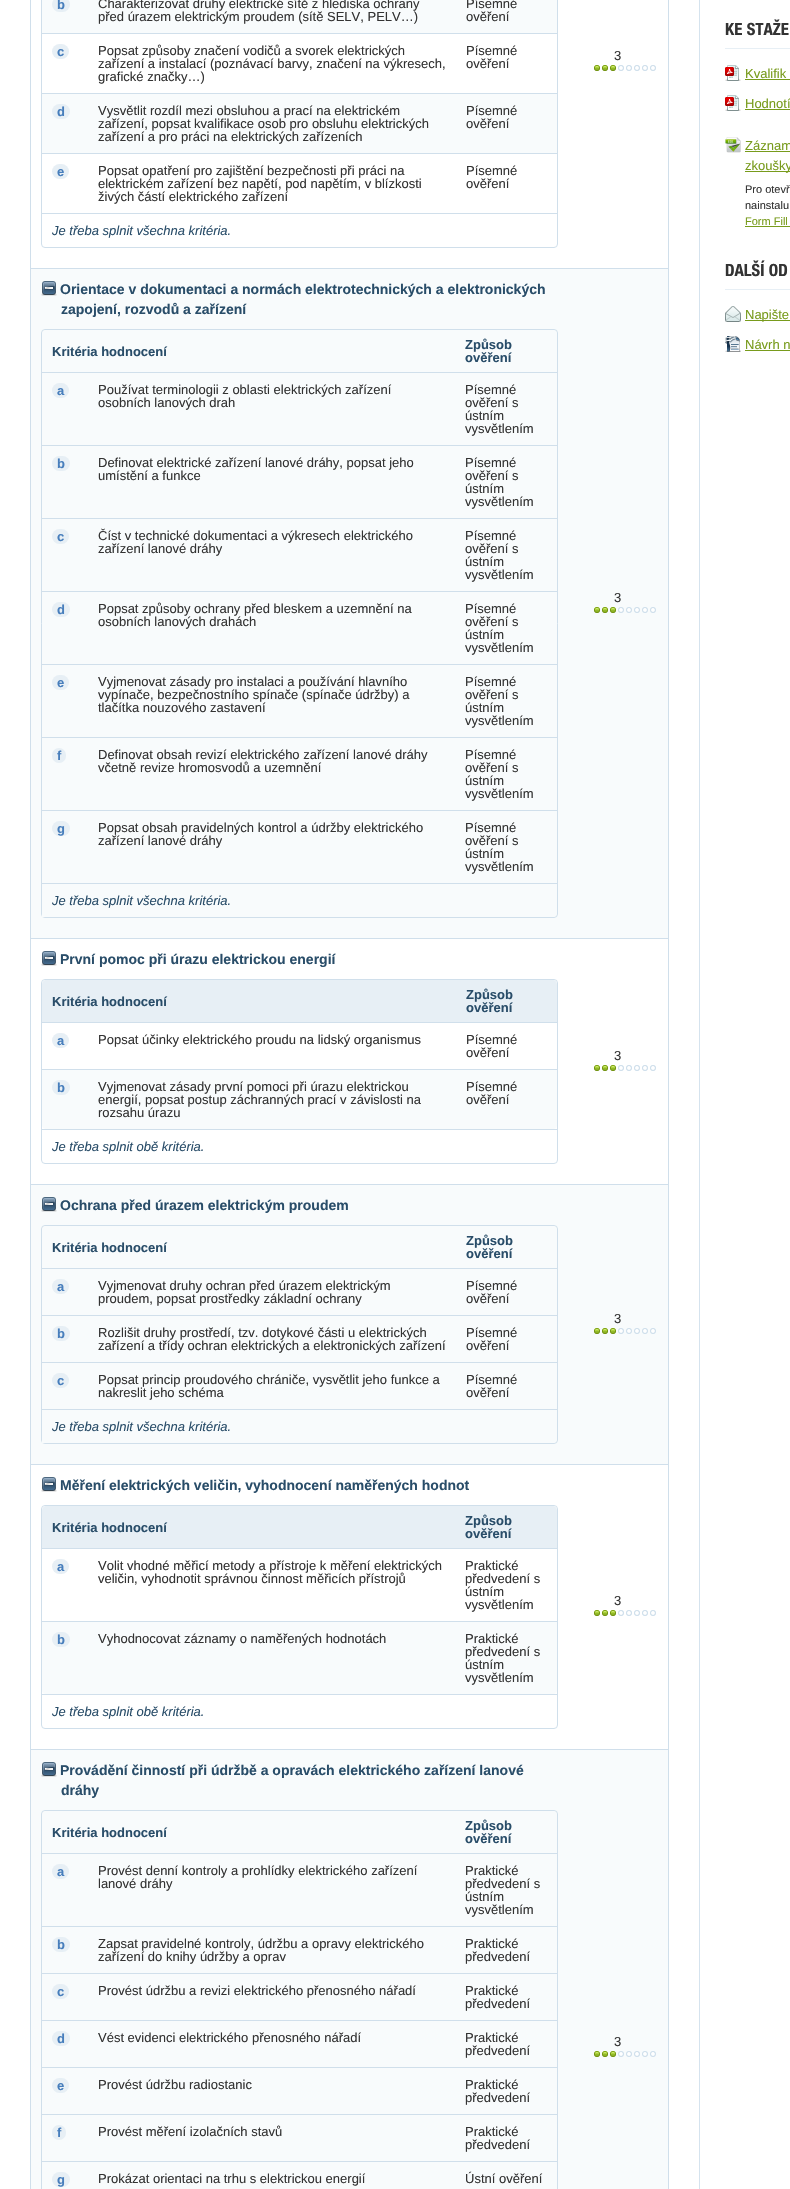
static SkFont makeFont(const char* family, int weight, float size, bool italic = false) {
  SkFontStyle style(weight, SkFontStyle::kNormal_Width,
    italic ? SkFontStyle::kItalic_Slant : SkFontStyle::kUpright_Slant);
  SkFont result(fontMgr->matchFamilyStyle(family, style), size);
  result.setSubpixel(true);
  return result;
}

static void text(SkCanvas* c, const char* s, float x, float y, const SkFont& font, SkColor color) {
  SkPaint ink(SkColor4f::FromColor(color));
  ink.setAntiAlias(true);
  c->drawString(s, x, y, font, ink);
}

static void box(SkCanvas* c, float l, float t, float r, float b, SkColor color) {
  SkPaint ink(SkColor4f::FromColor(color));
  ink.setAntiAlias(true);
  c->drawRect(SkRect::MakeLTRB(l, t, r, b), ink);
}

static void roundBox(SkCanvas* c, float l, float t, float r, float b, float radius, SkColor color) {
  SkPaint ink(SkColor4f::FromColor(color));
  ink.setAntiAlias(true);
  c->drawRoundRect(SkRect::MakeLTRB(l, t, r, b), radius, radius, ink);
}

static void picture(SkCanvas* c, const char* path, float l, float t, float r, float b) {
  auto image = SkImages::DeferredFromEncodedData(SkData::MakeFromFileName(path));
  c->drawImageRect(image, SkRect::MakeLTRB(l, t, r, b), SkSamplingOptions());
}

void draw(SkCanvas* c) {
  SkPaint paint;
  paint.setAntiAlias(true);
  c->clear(0xffffffff);
  box(c, 699, 0, 700, 2189, 0xffd5e3ee);
  paint.setStyle(SkPaint::kStroke_Style);
  paint.setStrokeWidth(1);
  paint.setColor(0xffd0dfeb);
  c->drawRect(SkRect::MakeLTRB(30.5f, -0.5f, 668.5f, 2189.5f), paint);
  c->drawRoundRect(SkRect::MakeLTRB(41.5f, -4.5f, 557.5f, 247.5f), 3.5f, 3.5f, paint);
  box(c, 42, 0, 557, 33, 0xfff8fbfc);
  roundBox(c, 52, -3, 70, 12, 7.5f, 0xffe7eff5);
  SkFont face1 = makeFont("Liberation Sans", 700, 13);
  text(c, "b", 57, 9, face1, 0xff477ebc);
  SkFont face2 = makeFont("Liberation Sans", 400, 13);
  text(c, "Charakterizovat druhy elektrické sítě z hlediska ochrany", 98, 8, face2, 0xff333333);
  text(c, "před úrazem elektrickým proudem (sítě SELV, PELV…)", 98, 21, face2, 0xff333333);
  text(c, "Písemné", 466, 8, face2, 0xff333333);
  text(c, "ověření", 466, 21, face2, 0xff333333);
  box(c, 42, 33, 557, 34, 0xffd0dfeb);
  roundBox(c, 52, 44, 69, 59, 7.5f, 0xffe7eff5);
  text(c, "c", 57, 56, face1, 0xff477ebc);
  text(c, "Popsat způsoby značení vodičů a svorek elektrických", 98, 55, face2, 0xff333333);
  text(c, "zařízení a instalací (poznávací barvy, značení na výkresech,", 98, 68, face2, 0xff333333);
  text(c, "grafické značky…)", 98, 81, face2, 0xff333333);
  text(c, "Písemné", 466, 55, face2, 0xff333333);
  text(c, "ověření", 466, 68, face2, 0xff333333);
  box(c, 42, 94, 557, 153, 0xfff8fbfc);
  box(c, 42, 93, 557, 94, 0xffd0dfeb);
  roundBox(c, 52, 104, 70, 119, 7.5f, 0xffe7eff5);
  text(c, "d", 57, 116, face1, 0xff477ebc);
  text(c, "Vysvětlit rozdíl mezi obsluhou a prací na elektrickém", 98, 115, face2, 0xff333333);
  text(c, "zařízení, popsat kvalifikace osob pro obsluhu elektrických", 98, 128, face2, 0xff333333);
  text(c, "zařízení a pro práci na elektrických zařízeních", 98, 141, face2, 0xff333333);
  text(c, "Písemné", 466, 115, face2, 0xff333333);
  text(c, "ověření", 466, 128, face2, 0xff333333);
  box(c, 42, 153, 557, 154, 0xffd0dfeb);
  roundBox(c, 52, 164, 69, 179, 7.5f, 0xffe7eff5);
  text(c, "e", 57, 176, face1, 0xff477ebc);
  text(c, "Popsat opatření pro zajištění bezpečnosti při práci na", 98, 175, face2, 0xff333333);
  text(c, "elektrickém zařízení bez napětí, pod napětím, v blízkosti", 98, 188, face2, 0xff333333);
  text(c, "živých částí elektrického zařízení", 98, 201, face2, 0xff333333);
  text(c, "Písemné", 466, 175, face2, 0xff333333);
  text(c, "ověření", 466, 188, face2, 0xff333333);
  box(c, 42, 213, 557, 214, 0xffd0dfeb);
  SkFont face3 = makeFont("Liberation Sans", 400, 13, true);
  text(c, "Je třeba splnit všechna kritéria.", 52, 235, face3, 0xff294d69);
  text(c, "3", 614, 60, face2, 0xff333333);
  picture(c, "img_01.png", 594, 65, 656, 71);
  box(c, 31, 269, 668, 938, 0xfff8fbfc);
  box(c, 31, 268, 668, 269, 0xffd0dfeb);
  picture(c, "img_02.png", 41, 281, 57, 296);
  SkFont face4 = makeFont("Liberation Sans", 700, 14);
  text(c, "Orientace v dokumentaci a normách elektrotechnických a elektronických", 60, 294, face4, 0xff294d69);
  text(c, "zapojení, rozvodů a zařízení", 61, 314, face4, 0xff294d69);
  c->drawRoundRect(SkRect::MakeLTRB(41.5f, 329.5f, 557.5f, 917.5f), 3.5f, 3.5f, paint);
  paint.setStyle(SkPaint::kFill_Style);
  paint.setColor(0xfff8fbfc);
  c->drawPath(SkPathBuilder().moveTo(46, 330).lineTo(455, 330).lineTo(455, 372).lineTo(42, 372).lineTo(42, 334).cubicTo(42, 332, 44, 330, 46, 330).close().detach(), paint);
  text(c, "Kritéria hodnocení", 52, 356, face1, 0xff294d69);
  c->drawPath(SkPathBuilder().moveTo(455, 330).lineTo(553, 330).cubicTo(555, 330, 557, 332, 557, 334).lineTo(557, 372).lineTo(455, 372).close().detach(), paint);
  text(c, "Způsob", 465, 349, face1, 0xff294d69);
  text(c, "ověření", 465, 362, face1, 0xff294d69);
  box(c, 42, 372, 557, 373, 0xffd0dfeb);
  roundBox(c, 52, 383, 69, 398, 7.5f, 0xffe7eff5);
  text(c, "a", 57, 395, face1, 0xff477ebc);
  text(c, "Používat terminologii z oblasti elektrických zařízení", 98, 394, face2, 0xff333333);
  text(c, "osobních lanových drah", 98, 407, face2, 0xff333333);
  text(c, "Písemné", 465, 394, face2, 0xff333333);
  text(c, "ověření s", 465, 407, face2, 0xff333333);
  text(c, "ústním", 465, 420, face2, 0xff333333);
  text(c, "vysvětlením", 465, 433, face2, 0xff333333);
  box(c, 42, 445, 557, 446, 0xffd0dfeb);
  roundBox(c, 52, 456, 70, 471, 7.5f, 0xffe7eff5);
  text(c, "b", 57, 468, face1, 0xff477ebc);
  text(c, "Definovat elektrické zařízení lanové dráhy, popsat jeho", 98, 467, face2, 0xff333333);
  text(c, "umístění a funkce", 98, 480, face2, 0xff333333);
  text(c, "Písemné", 465, 467, face2, 0xff333333);
  text(c, "ověření s", 465, 480, face2, 0xff333333);
  text(c, "ústním", 465, 493, face2, 0xff333333);
  text(c, "vysvětlením", 465, 506, face2, 0xff333333);
  box(c, 42, 518, 557, 519, 0xffd0dfeb);
  roundBox(c, 52, 529, 69, 544, 7.5f, 0xffe7eff5);
  text(c, "c", 57, 541, face1, 0xff477ebc);
  text(c, "Číst v technické dokumentaci a výkresech elektrického", 98, 540, face2, 0xff333333);
  text(c, "zařízení lanové dráhy", 98, 553, face2, 0xff333333);
  text(c, "Písemné", 465, 540, face2, 0xff333333);
  text(c, "ověření s", 465, 553, face2, 0xff333333);
  text(c, "ústním", 465, 566, face2, 0xff333333);
  text(c, "vysvětlením", 465, 579, face2, 0xff333333);
  box(c, 42, 591, 557, 592, 0xffd0dfeb);
  roundBox(c, 52, 602, 70, 617, 7.5f, 0xffe7eff5);
  text(c, "d", 57, 614, face1, 0xff477ebc);
  text(c, "Popsat způsoby ochrany před bleskem a uzemnění na", 98, 613, face2, 0xff333333);
  text(c, "osobních lanových drahách", 98, 626, face2, 0xff333333);
  text(c, "Písemné", 465, 613, face2, 0xff333333);
  text(c, "ověření s", 465, 626, face2, 0xff333333);
  text(c, "ústním", 465, 639, face2, 0xff333333);
  text(c, "vysvětlením", 465, 652, face2, 0xff333333);
  box(c, 42, 664, 557, 665, 0xffd0dfeb);
  roundBox(c, 52, 675, 69, 690, 7.5f, 0xffe7eff5);
  text(c, "e", 57, 687, face1, 0xff477ebc);
  text(c, "Vyjmenovat zásady pro instalaci a používání hlavního", 98, 686, face2, 0xff333333);
  text(c, "vypínače, bezpečnostního spínače (spínače údržby) a", 98, 699, face2, 0xff333333);
  text(c, "tlačítka nouzového zastavení", 98, 712, face2, 0xff333333);
  text(c, "Písemné", 465, 686, face2, 0xff333333);
  text(c, "ověření s", 465, 699, face2, 0xff333333);
  text(c, "ústním", 465, 712, face2, 0xff333333);
  text(c, "vysvětlením", 465, 725, face2, 0xff333333);
  box(c, 42, 737, 557, 738, 0xffd0dfeb);
  roundBox(c, 52, 748, 66, 763, 7, 0xffe7eff5);
  text(c, "f", 57, 760, face1, 0xff477ebc);
  text(c, "Definovat obsah revizí elektrického zařízení lanové dráhy", 98, 759, face2, 0xff333333);
  text(c, "včetně revize hromosvodů a uzemnění", 98, 772, face2, 0xff333333);
  text(c, "Písemné", 465, 759, face2, 0xff333333);
  text(c, "ověření s", 465, 772, face2, 0xff333333);
  text(c, "ústním", 465, 785, face2, 0xff333333);
  text(c, "vysvětlením", 465, 798, face2, 0xff333333);
  box(c, 42, 810, 557, 811, 0xffd0dfeb);
  roundBox(c, 52, 821, 70, 836, 7.5f, 0xffe7eff5);
  text(c, "g", 57, 833, face1, 0xff477ebc);
  text(c, "Popsat obsah pravidelných kontrol a údržby elektrického", 98, 832, face2, 0xff333333);
  text(c, "zařízení lanové dráhy", 98, 845, face2, 0xff333333);
  text(c, "Písemné", 465, 832, face2, 0xff333333);
  text(c, "ověření s", 465, 845, face2, 0xff333333);
  text(c, "ústním", 465, 858, face2, 0xff333333);
  text(c, "vysvětlením", 465, 871, face2, 0xff333333);
  c->drawPath(SkPathBuilder().moveTo(42, 883).lineTo(557, 883).lineTo(557, 913).cubicTo(557, 915, 555, 917, 553, 917).lineTo(42, 917).close().detach(), paint);
  box(c, 42, 883, 557, 884, 0xffd0dfeb);
  text(c, "Je třeba splnit všechna kritéria.", 52, 905, face3, 0xff294d69);
  text(c, "3", 614, 602, face2, 0xff333333);
  picture(c, "img_03.png", 594, 607, 656, 613);
  box(c, 31, 938, 668, 939, 0xffd0dfeb);
  picture(c, "img_04.png", 41, 951, 57, 966);
  text(c, "První pomoc při úrazu elektrickou energií", 60, 964, face4, 0xff294d69);
  paint.setStyle(SkPaint::kStroke_Style);
  paint.setColor(0xffd0dfeb);
  c->drawRoundRect(SkRect::MakeLTRB(41.5f, 979.5f, 557.5f, 1163.5f), 3.5f, 3.5f, paint);
  paint.setStyle(SkPaint::kFill_Style);
  paint.setColor(0xffe7eff5);
  c->drawPath(SkPathBuilder().moveTo(46, 980).lineTo(456, 980).lineTo(456, 1022).lineTo(42, 1022).lineTo(42, 984).cubicTo(42, 982, 44, 980, 46, 980).close().detach(), paint);
  text(c, "Kritéria hodnocení", 52, 1006, face1, 0xff294d69);
  c->drawPath(SkPathBuilder().moveTo(456, 980).lineTo(553, 980).cubicTo(555, 980, 557, 982, 557, 984).lineTo(557, 1022).lineTo(456, 1022).close().detach(), paint);
  text(c, "Způsob", 466, 999, face1, 0xff294d69);
  text(c, "ověření", 466, 1012, face1, 0xff294d69);
  box(c, 42, 1022, 557, 1023, 0xffd0dfeb);
  roundBox(c, 52, 1033, 69, 1048, 7.5f, 0xffe7eff5);
  text(c, "a", 57, 1045, face1, 0xff477ebc);
  text(c, "Popsat účinky elektrického proudu na lidský organismus", 98, 1044, face2, 0xff333333);
  text(c, "Písemné", 466, 1044, face2, 0xff333333);
  text(c, "ověření", 466, 1057, face2, 0xff333333);
  paint.setColor(0xfff8fbfc);
  c->drawPath(SkPathBuilder().moveTo(42, 1069).lineTo(88, 1069).lineTo(88, 1129).lineTo(46, 1129).cubicTo(44, 1129, 42, 1127, 42, 1125).close().detach(), paint);
  box(c, 42, 1069, 456, 1070, 0xffd0dfeb);
  roundBox(c, 52, 1080, 70, 1095, 7.5f, 0xffe7eff5);
  text(c, "b", 57, 1092, face1, 0xff477ebc);
  box(c, 88, 1070, 456, 1129, 0xfff8fbfc);
  text(c, "Vyjmenovat zásady první pomoci při úrazu elektrickou", 98, 1091, face2, 0xff333333);
  text(c, "energií, popsat postup záchranných prací v závislosti na", 98, 1104, face2, 0xff333333);
  text(c, "rozsahu úrazu", 98, 1117, face2, 0xff333333);
  c->drawPath(SkPathBuilder().moveTo(456, 1069).lineTo(557, 1069).lineTo(557, 1125).cubicTo(557, 1127, 555, 1129, 553, 1129).lineTo(456, 1129).close().detach(), paint);
  box(c, 456, 1069, 557, 1070, 0xffd0dfeb);
  text(c, "Písemné", 466, 1091, face2, 0xff333333);
  text(c, "ověření", 466, 1104, face2, 0xff333333);
  box(c, 42, 1129, 557, 1130, 0xffd0dfeb);
  text(c, "Je třeba splnit obě kritéria.", 52, 1151, face3, 0xff294d69);
  text(c, "3", 614, 1060, face2, 0xff333333);
  picture(c, "img_01.png", 594, 1065, 656, 1071);
  box(c, 31, 1185, 668, 1464, 0xfff8fbfc);
  box(c, 31, 1184, 668, 1185, 0xffd0dfeb);
  picture(c, "img_02.png", 41, 1197, 57, 1212);
  text(c, "Ochrana před úrazem elektrickým proudem", 60, 1210, face4, 0xff294d69);
  paint.setStyle(SkPaint::kStroke_Style);
  paint.setColor(0xffd0dfeb);
  c->drawRoundRect(SkRect::MakeLTRB(41.5f, 1225.5f, 557.5f, 1443.5f), 3.5f, 3.5f, paint);
  paint.setStyle(SkPaint::kFill_Style);
  paint.setColor(0xfff8fbfc);
  c->drawPath(SkPathBuilder().moveTo(46, 1226).lineTo(456, 1226).lineTo(456, 1268).lineTo(42, 1268).lineTo(42, 1230).cubicTo(42, 1228, 44, 1226, 46, 1226).close().detach(), paint);
  text(c, "Kritéria hodnocení", 52, 1252, face1, 0xff294d69);
  c->drawPath(SkPathBuilder().moveTo(456, 1226).lineTo(553, 1226).cubicTo(555, 1226, 557, 1228, 557, 1230).lineTo(557, 1268).lineTo(456, 1268).close().detach(), paint);
  text(c, "Způsob", 466, 1245, face1, 0xff294d69);
  text(c, "ověření", 466, 1258, face1, 0xff294d69);
  box(c, 42, 1268, 557, 1269, 0xffd0dfeb);
  roundBox(c, 52, 1279, 69, 1294, 7.5f, 0xffe7eff5);
  text(c, "a", 57, 1291, face1, 0xff477ebc);
  text(c, "Vyjmenovat druhy ochran před úrazem elektrickým", 98, 1290, face2, 0xff333333);
  text(c, "proudem, popsat prostředky základní ochrany", 98, 1303, face2, 0xff333333);
  text(c, "Písemné", 466, 1290, face2, 0xff333333);
  text(c, "ověření", 466, 1303, face2, 0xff333333);
  box(c, 42, 1315, 557, 1316, 0xffd0dfeb);
  roundBox(c, 52, 1326, 70, 1341, 7.5f, 0xffe7eff5);
  text(c, "b", 57, 1338, face1, 0xff477ebc);
  text(c, "Rozlišit druhy prostředí, tzv. dotykové části u elektrických", 98, 1337, face2, 0xff333333);
  text(c, "zařízení a třídy ochran elektrických a elektronických zařízení", 98, 1350, face2, 0xff333333);
  text(c, "Písemné", 466, 1337, face2, 0xff333333);
  text(c, "ověření", 466, 1350, face2, 0xff333333);
  box(c, 42, 1362, 557, 1363, 0xffd0dfeb);
  roundBox(c, 52, 1373, 69, 1388, 7.5f, 0xffe7eff5);
  text(c, "c", 57, 1385, face1, 0xff477ebc);
  text(c, "Popsat princip proudového chrániče, vysvětlit jeho funkce a", 98, 1384, face2, 0xff333333);
  text(c, "nakreslit jeho schéma", 98, 1397, face2, 0xff333333);
  text(c, "Písemné", 466, 1384, face2, 0xff333333);
  text(c, "ověření", 466, 1397, face2, 0xff333333);
  c->drawPath(SkPathBuilder().moveTo(42, 1409).lineTo(557, 1409).lineTo(557, 1439).cubicTo(557, 1441, 555, 1443, 553, 1443).lineTo(42, 1443).close().detach(), paint);
  box(c, 42, 1409, 557, 1410, 0xffd0dfeb);
  text(c, "Je třeba splnit všechna kritéria.", 52, 1431, face3, 0xff294d69);
  text(c, "3", 614, 1323, face2, 0xff333333);
  picture(c, "img_03.png", 594, 1328, 656, 1334);
  box(c, 31, 1464, 668, 1465, 0xffd0dfeb);
  picture(c, "img_04.png", 41, 1477, 57, 1492);
  text(c, "Měření elektrických veličin, vyhodnocení naměřených hodnot", 60, 1490, face4, 0xff294d69);
  paint.setStyle(SkPaint::kStroke_Style);
  paint.setColor(0xffd0dfeb);
  c->drawRoundRect(SkRect::MakeLTRB(41.5f, 1505.5f, 557.5f, 1728.5f), 3.5f, 3.5f, paint);
  paint.setStyle(SkPaint::kFill_Style);
  paint.setColor(0xffe7eff5);
  c->drawPath(SkPathBuilder().moveTo(46, 1506).lineTo(455, 1506).lineTo(455, 1548).lineTo(42, 1548).lineTo(42, 1510).cubicTo(42, 1508, 44, 1506, 46, 1506).close().detach(), paint);
  text(c, "Kritéria hodnocení", 52, 1532, face1, 0xff294d69);
  c->drawPath(SkPathBuilder().moveTo(455, 1506).lineTo(553, 1506).cubicTo(555, 1506, 557, 1508, 557, 1510).lineTo(557, 1548).lineTo(455, 1548).close().detach(), paint);
  text(c, "Způsob", 465, 1525, face1, 0xff294d69);
  text(c, "ověření", 465, 1538, face1, 0xff294d69);
  box(c, 42, 1548, 557, 1549, 0xffd0dfeb);
  roundBox(c, 52, 1559, 69, 1574, 7.5f, 0xffe7eff5);
  text(c, "a", 57, 1571, face1, 0xff477ebc);
  text(c, "Volit vhodné měřicí metody a přístroje k měření elektrických", 98, 1570, face2, 0xff333333);
  text(c, "veličin, vyhodnotit správnou činnost měřicích přístrojů", 98, 1583, face2, 0xff333333);
  text(c, "Praktické", 465, 1570, face2, 0xff333333);
  text(c, "předvedení s", 465, 1583, face2, 0xff333333);
  text(c, "ústním", 465, 1596, face2, 0xff333333);
  text(c, "vysvětlením", 465, 1609, face2, 0xff333333);
  paint.setColor(0xfff8fbfc);
  c->drawPath(SkPathBuilder().moveTo(42, 1621).lineTo(88, 1621).lineTo(88, 1694).lineTo(46, 1694).cubicTo(44, 1694, 42, 1692, 42, 1690).close().detach(), paint);
  box(c, 42, 1621, 455, 1622, 0xffd0dfeb);
  roundBox(c, 52, 1632, 70, 1647, 7.5f, 0xffe7eff5);
  text(c, "b", 57, 1644, face1, 0xff477ebc);
  box(c, 88, 1622, 455, 1694, 0xfff8fbfc);
  text(c, "Vyhodnocovat záznamy o naměřených hodnotách", 98, 1643, face2, 0xff333333);
  c->drawPath(SkPathBuilder().moveTo(455, 1621).lineTo(557, 1621).lineTo(557, 1690).cubicTo(557, 1692, 555, 1694, 553, 1694).lineTo(455, 1694).close().detach(), paint);
  box(c, 455, 1621, 557, 1622, 0xffd0dfeb);
  text(c, "Praktické", 465, 1643, face2, 0xff333333);
  text(c, "předvedení s", 465, 1656, face2, 0xff333333);
  text(c, "ústním", 465, 1669, face2, 0xff333333);
  text(c, "vysvětlením", 465, 1682, face2, 0xff333333);
  box(c, 42, 1694, 557, 1695, 0xffd0dfeb);
  text(c, "Je třeba splnit obě kritéria.", 52, 1716, face3, 0xff294d69);
  text(c, "3", 614, 1605, face2, 0xff333333);
  picture(c, "img_01.png", 594, 1610, 656, 1616);
  box(c, 31, 1750, 668, 2189, 0xfff8fbfc);
  box(c, 31, 1749, 668, 1750, 0xffd0dfeb);
  picture(c, "img_02.png", 41, 1762, 57, 1777);
  text(c, "Provádění činností při údržbě a opravách elektrického zařízení lanové", 60, 1775, face4, 0xff294d69);
  text(c, "dráhy", 61, 1795, face4, 0xff294d69);
  paint.setStyle(SkPaint::kStroke_Style);
  paint.setColor(0xffd0dfeb);
  c->drawRoundRect(SkRect::MakeLTRB(41.5f, 1810.5f, 557.5f, 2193.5f), 3.5f, 3.5f, paint);
  paint.setStyle(SkPaint::kFill_Style);
  paint.setColor(0xfff8fbfc);
  c->drawPath(SkPathBuilder().moveTo(46, 1811).lineTo(455, 1811).lineTo(455, 1853).lineTo(42, 1853).lineTo(42, 1815).cubicTo(42, 1813, 44, 1811, 46, 1811).close().detach(), paint);
  text(c, "Kritéria hodnocení", 52, 1837, face1, 0xff294d69);
  c->drawPath(SkPathBuilder().moveTo(455, 1811).lineTo(553, 1811).cubicTo(555, 1811, 557, 1813, 557, 1815).lineTo(557, 1853).lineTo(455, 1853).close().detach(), paint);
  text(c, "Způsob", 465, 1830, face1, 0xff294d69);
  text(c, "ověření", 465, 1843, face1, 0xff294d69);
  box(c, 42, 1853, 557, 1854, 0xffd0dfeb);
  roundBox(c, 52, 1864, 69, 1879, 7.5f, 0xffe7eff5);
  text(c, "a", 57, 1876, face1, 0xff477ebc);
  text(c, "Provést denní kontroly a prohlídky elektrického zařízení", 98, 1875, face2, 0xff333333);
  text(c, "lanové dráhy", 98, 1888, face2, 0xff333333);
  text(c, "Praktické", 465, 1875, face2, 0xff333333);
  text(c, "předvedení s", 465, 1888, face2, 0xff333333);
  text(c, "ústním", 465, 1901, face2, 0xff333333);
  text(c, "vysvětlením", 465, 1914, face2, 0xff333333);
  box(c, 42, 1926, 557, 1927, 0xffd0dfeb);
  roundBox(c, 52, 1937, 70, 1952, 7.5f, 0xffe7eff5);
  text(c, "b", 57, 1949, face1, 0xff477ebc);
  text(c, "Zapsat pravidelné kontroly, údržbu a opravy elektrického", 98, 1948, face2, 0xff333333);
  text(c, "zařízení do knihy údržby a oprav", 98, 1961, face2, 0xff333333);
  text(c, "Praktické", 465, 1948, face2, 0xff333333);
  text(c, "předvedení", 465, 1961, face2, 0xff333333);
  box(c, 42, 1973, 557, 1974, 0xffd0dfeb);
  roundBox(c, 52, 1984, 69, 1999, 7.5f, 0xffe7eff5);
  text(c, "c", 57, 1996, face1, 0xff477ebc);
  text(c, "Provést údržbu a revizi elektrického přenosného nářadí", 98, 1995, face2, 0xff333333);
  text(c, "Praktické", 465, 1995, face2, 0xff333333);
  text(c, "předvedení", 465, 2008, face2, 0xff333333);
  box(c, 42, 2020, 557, 2021, 0xffd0dfeb);
  roundBox(c, 52, 2031, 70, 2046, 7.5f, 0xffe7eff5);
  text(c, "d", 57, 2043, face1, 0xff477ebc);
  text(c, "Vést evidenci elektrického přenosného nářadí", 98, 2042, face2, 0xff333333);
  text(c, "Praktické", 465, 2042, face2, 0xff333333);
  text(c, "předvedení", 465, 2055, face2, 0xff333333);
  box(c, 42, 2067, 557, 2068, 0xffd0dfeb);
  roundBox(c, 52, 2078, 69, 2093, 7.5f, 0xffe7eff5);
  text(c, "e", 57, 2090, face1, 0xff477ebc);
  text(c, "Provést údržbu radiostanic", 98, 2089, face2, 0xff333333);
  text(c, "Praktické", 465, 2089, face2, 0xff333333);
  text(c, "předvedení", 465, 2102, face2, 0xff333333);
  box(c, 42, 2114, 557, 2115, 0xffd0dfeb);
  roundBox(c, 52, 2125, 66, 2140, 7, 0xffe7eff5);
  text(c, "f", 57, 2137, face1, 0xff477ebc);
  text(c, "Provést měření izolačních stavů", 98, 2136, face2, 0xff333333);
  text(c, "Praktické", 465, 2136, face2, 0xff333333);
  text(c, "předvedení", 465, 2149, face2, 0xff333333);
  box(c, 42, 2161, 557, 2162, 0xffd0dfeb);
  roundBox(c, 52, 2172, 70, 2187, 7.5f, 0xffe7eff5);
  text(c, "g", 57, 2184, face1, 0xff477ebc);
  text(c, "Prokázat orientaci na trhu s elektrickou energií", 98, 2183, face2, 0xff333333);
  text(c, "Ústní ověření", 465, 2183, face2, 0xff333333);
  text(c, "3", 614, 2046, face2, 0xff333333);
  picture(c, "img_03.png", 594, 2051, 656, 2057);
  box(c, 725, 48, 790, 49, 0xffe7eff5);
  SkFont face5 = makeFont("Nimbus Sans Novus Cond", 700, 18);
  text(c, "KE STAŽE", 725, 35, face5, 0xff333333);
  picture(c, "img_05.png", 725, 65, 741, 81);
  text(c, "Kvalifik", 745, 78, face2, 0xff789b1c);
  box(c, 745, 79, 790, 80, 0xff789b1c);
  picture(c, "img_05.png", 725, 95, 741, 111);
  text(c, "Hodnotí", 745, 108, face2, 0xff789b1c);
  box(c, 745, 109, 790, 110, 0xff789b1c);
  picture(c, "img_06.png", 725, 137, 741, 153);
  text(c, "Záznam", 745, 150, face2, 0xff789b1c);
  box(c, 745, 151, 790, 152, 0xff789b1c);
  box(c, 745, 171, 790, 172, 0xff789b1c);
  text(c, "zkoušky", 745, 170, face2, 0xff789b1c);
  SkFont face6 = makeFont("Liberation Sans", 400, 11);
  text(c, "Pro otevř", 745, 193, face6, 0xff333333);
  text(c, "nainstalu", 745, 209, face6, 0xff333333);
  text(c, "Form Fill", 745, 225, face6, 0xff789b1c);
  box(c, 745, 226, 790, 227, 0xff789b1c);
  box(c, 725, 289, 790, 290, 0xffe7eff5);
  text(c, "DALŠÍ OD", 725, 276, face5, 0xff333333);
  picture(c, "img_07.png", 725, 306, 741, 322);
  box(c, 745, 320, 790, 321, 0xff789b1c);
  text(c, "Napište", 745, 319, face2, 0xff789b1c);
  picture(c, "img_08.png", 725, 336, 741, 352);
  text(c, "Návrh n", 745, 349, face2, 0xff789b1c);
  box(c, 745, 350, 790, 351, 0xff789b1c);
}
